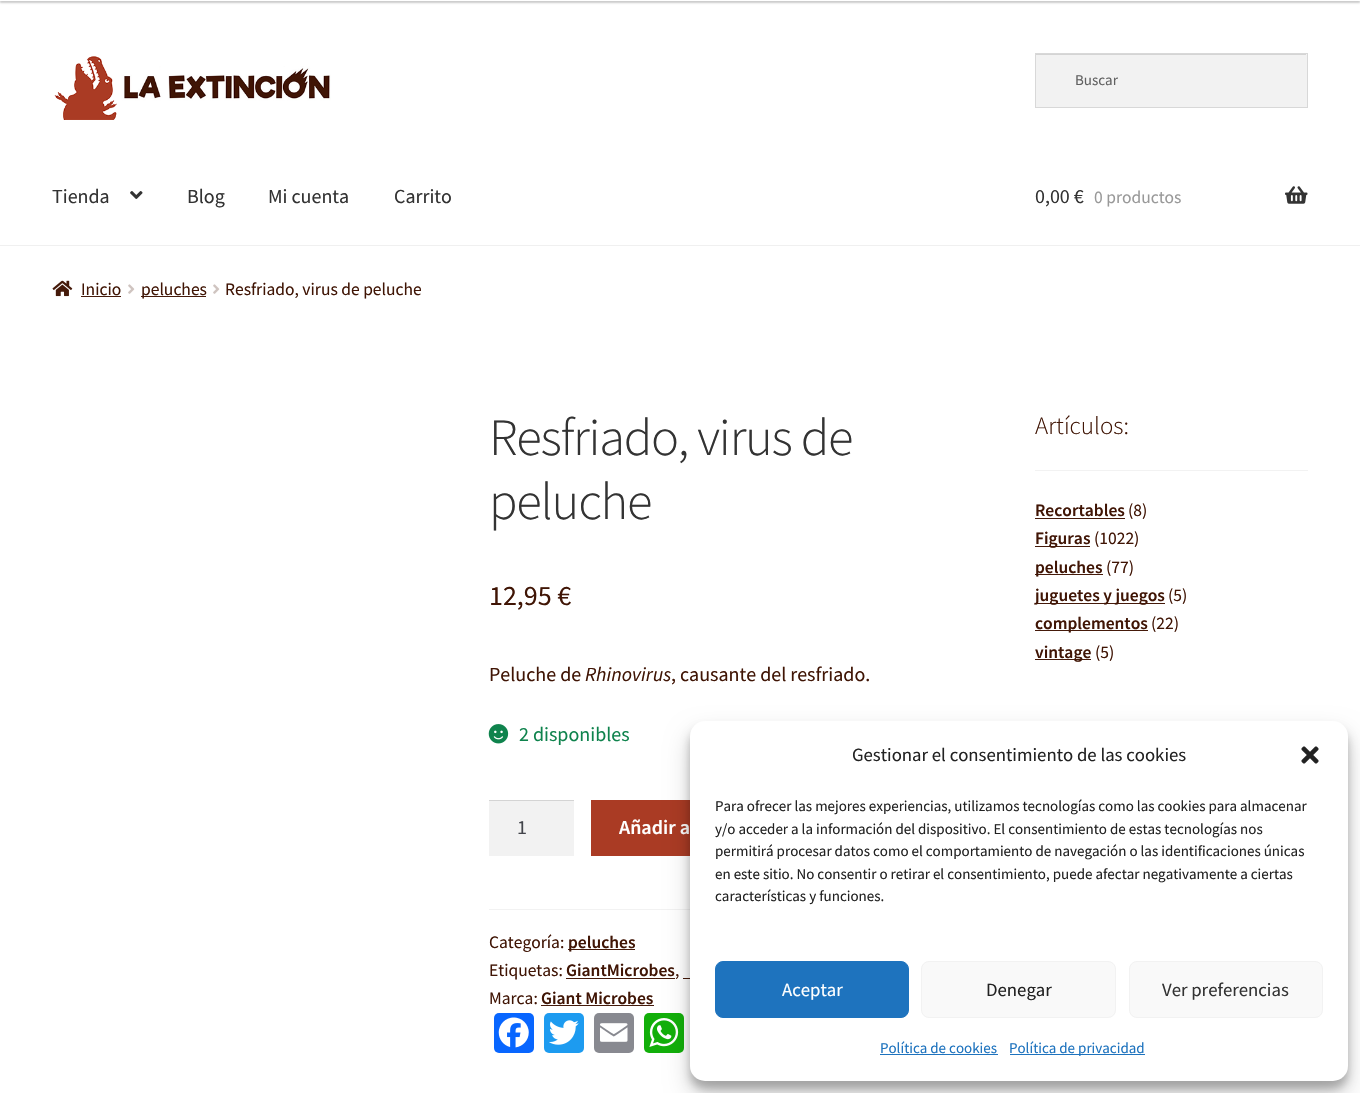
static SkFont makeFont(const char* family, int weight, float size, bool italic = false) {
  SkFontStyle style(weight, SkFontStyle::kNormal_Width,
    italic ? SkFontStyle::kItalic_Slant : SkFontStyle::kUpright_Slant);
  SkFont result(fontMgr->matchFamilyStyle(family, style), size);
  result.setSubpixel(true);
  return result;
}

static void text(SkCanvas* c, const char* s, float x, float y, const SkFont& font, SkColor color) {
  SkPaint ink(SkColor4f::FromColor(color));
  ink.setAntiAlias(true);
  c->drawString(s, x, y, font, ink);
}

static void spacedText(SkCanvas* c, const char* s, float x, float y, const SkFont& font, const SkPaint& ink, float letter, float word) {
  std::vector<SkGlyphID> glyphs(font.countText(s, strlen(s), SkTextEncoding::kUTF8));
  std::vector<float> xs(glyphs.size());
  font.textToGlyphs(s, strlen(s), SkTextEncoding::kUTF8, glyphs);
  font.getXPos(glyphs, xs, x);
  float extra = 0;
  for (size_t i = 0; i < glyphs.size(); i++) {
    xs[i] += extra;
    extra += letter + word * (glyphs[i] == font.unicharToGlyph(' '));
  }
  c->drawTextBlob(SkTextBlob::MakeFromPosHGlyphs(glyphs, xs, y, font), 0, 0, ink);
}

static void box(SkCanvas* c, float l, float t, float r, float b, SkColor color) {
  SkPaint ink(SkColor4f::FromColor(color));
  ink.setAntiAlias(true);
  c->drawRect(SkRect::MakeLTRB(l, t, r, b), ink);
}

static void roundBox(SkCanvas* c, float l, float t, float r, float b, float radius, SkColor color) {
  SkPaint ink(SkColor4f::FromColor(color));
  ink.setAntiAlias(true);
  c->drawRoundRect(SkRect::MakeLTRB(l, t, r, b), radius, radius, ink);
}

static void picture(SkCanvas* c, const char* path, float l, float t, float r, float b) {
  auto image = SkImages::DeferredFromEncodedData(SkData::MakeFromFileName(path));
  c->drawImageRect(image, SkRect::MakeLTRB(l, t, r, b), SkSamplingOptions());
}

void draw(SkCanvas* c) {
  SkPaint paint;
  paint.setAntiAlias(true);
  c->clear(0xffffffff);
  paint.setColor(0x33000000);
  paint.setMaskFilter(SkMaskFilter::MakeBlur(kNormal_SkBlurStyle, 1));
  c->drawRect(SkRect::MakeLTRB(0, -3, 1360, 3), paint);
  paint.setMaskFilter(nullptr);
  box(c, 0, 0, 1360, 1, 0xffffffff);
  box(c, 0, 245, 1360, 246, 0xfff0f0f0);
  picture(c, "img_01.png", 54, 56, 331, 120);
  box(c, 1036, 54, 1307, 107, 0xfff2f2f2);
  box(c, 1036, 54, 1306, 55, 0xffd4d4d4);
  paint.setStyle(SkPaint::kStroke_Style);
  paint.setStrokeWidth(1);
  paint.setColor(0xffd8d8d8);
  c->drawRect(SkRect::MakeLTRB(1035.5f, 53.5f, 1307.5f, 107.5f), paint);
  SkFont face1 = makeFont("Source Sans Pro", 400, 15);
  text(c, "Buscar", 1075, 85, face1, 0xff616161);
  SkFont face2 = makeFont("Source Sans Pro", 400, 20);
  text(c, "Tienda", 52, 203, face2, 0xff333333);
  picture(c, "img_02.png", 130, 191, 143, 199);
  text(c, "Blog", 187, 203, face2, 0xff333333);
  text(c, "Mi cuenta", 268, 203, face2, 0xff333333);
  text(c, "Carrito", 394, 203, face2, 0xff333333);
  text(c, "0,00 €", 1035, 203, face2, 0xff333333);
  SkFont face3 = makeFont("Source Sans Pro", 400, 17.5f);
  text(c, "0 productos", 1094, 203, face3, 0xff999999);
  picture(c, "img_03.png", 1285, 186, 1308, 204);
  picture(c, "img_04.png", 52, 280, 73, 297);
  text(c, "Inicio", 81, 295, face3, 0xff401505);
  box(c, 81, 296, 121, 297, 0xff451a0a);
  picture(c, "img_05.png", 128, 284, 135, 294);
  box(c, 141, 296, 206, 297, 0xff451a0a);
  text(c, "peluches", 141, 295, face3, 0xff401505);
  picture(c, "img_05.png", 213, 284, 220, 294);
  text(c, "Resfriado, virus de peluche", 225, 295, face3, 0xff401505);
  SkFont face4 = makeFont("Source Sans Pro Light", 300, 52.5f);
  paint.setStyle(SkPaint::kFill_Style);
  paint.setColor(0xff333333);
  spacedText(c, "Resfriado, virus de", 489, 455, face4, paint, -1.25f, 0);
  spacedText(c, "peluche", 489, 519, face4, paint, -1.25f, 0);
  SkFont face5 = makeFont("Source Sans Pro", 400, 28);
  text(c, "12,95 €", 489, 605, face5, 0xff401505);
  text(c, "Peluche de", 489, 681, face2, 0xff401505);
  SkFont face6 = makeFont("Source Sans Pro", 400, 20, true);
  text(c, "Rhinovirus", 585, 681, face6, 0xff401505);
  text(c, ", causante del resfriado.", 671, 681, face2, 0xff401505);
  picture(c, "img_06.png", 488, 724, 509, 744);
  text(c, "2 disponibles", 519, 741, face2, 0xff0f834d);
  box(c, 489, 801, 574, 856, 0xfff2f2f2);
  box(c, 489, 800, 574, 801, 0xffd4d4d4);
  text(c, "1", 517, 834, face2, 0xff43454b);
  box(c, 591, 800, 690, 856, 0xffaa3b24);
  SkFont face7 = makeFont("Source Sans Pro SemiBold", 600, 20);
  text(c, "Añadir a", 619, 834, face7, 0xffffffff);
  box(c, 489, 909, 690, 910, 0xfff2f2f2);
  text(c, "Categoría:", 489, 948, face3, 0xff401505);
  box(c, 568, 949, 635, 950, 0xff451a0a);
  SkFont face8 = makeFont("Source Sans Pro SemiBold", 600, 17.5f);
  text(c, "peluches", 568, 948, face8, 0xff401505);
  text(c, "Etiquetas:", 489, 976, face3, 0xff401505);
  text(c, "GiantMicrobes", 566, 976, face8, 0xff401505);
  box(c, 566, 978, 675, 979, 0xff451a0a);
  text(c, ",", 675, 976, face3, 0xff401505);
  box(c, 683, 978, 690, 979, 0xff451a0a);
  text(c, "Marca:", 489, 1004, face3, 0xff401505);
  text(c, "Giant Microbes", 541, 1004, face8, 0xff401505);
  box(c, 541, 1005, 654, 1006, 0xff451a0a);
  roundBox(c, 494, 1013, 534, 1053, 5, 0xff0866ff);
  picture(c, "img_07.png", 498, 1017, 529, 1048);
  roundBox(c, 544, 1013, 584, 1053, 5, 0xff1d9bf0);
  picture(c, "img_08.png", 549, 1020, 579, 1045);
  roundBox(c, 594, 1013, 634, 1053, 5, 0xff888990);
  picture(c, "img_09.png", 600, 1023, 628, 1042);
  roundBox(c, 644, 1013, 684, 1053, 5, 0xff12af0a);
  picture(c, "img_10.png", 649, 1018, 679, 1047);
  box(c, 1035, 470, 1308, 471, 0xfff2f2f2);
  SkFont face9 = makeFont("Source Sans Pro Light", 300, 25);
  text(c, "Artículos:", 1035, 434, face9, 0xff401505);
  text(c, "Recortables", 1035, 516, face8, 0xff401505);
  box(c, 1035, 518, 1125, 519, 0xff451a0a);
  text(c, "(8)", 1128, 516, face3, 0xff401505);
  box(c, 1035, 546, 1090, 547, 0xff451a0a);
  text(c, "Figuras", 1035, 544, face8, 0xff401505);
  text(c, "(1022)", 1094, 544, face3, 0xff401505);
  box(c, 1035, 574, 1103, 575, 0xff451a0a);
  text(c, "peluches", 1035, 573, face8, 0xff401505);
  text(c, "(77)", 1106, 573, face3, 0xff401505);
  box(c, 1035, 603, 1165, 604, 0xff451a0a);
  text(c, "juguetes y juegos", 1035, 601, face8, 0xff401505);
  text(c, "(5)", 1168, 601, face3, 0xff401505);
  box(c, 1035, 630, 1148, 631, 0xff451a0a);
  text(c, "complementos", 1035, 629, face8, 0xff401505);
  text(c, "(22)", 1151, 629, face3, 0xff401505);
  box(c, 1035, 659, 1091, 660, 0xff451a0a);
  text(c, "vintage", 1035, 658, face8, 0xff401505);
  text(c, "(5)", 1095, 658, face3, 0xff401505);
  paint.setColor(0x3b000000);
  paint.setMaskFilter(SkMaskFilter::MakeBlur(kNormal_SkBlurStyle, 4));
  c->drawRoundRect(SkRect::MakeLTRB(690, 729, 1348, 1089), 15, 15, paint);
  paint.setMaskFilter(nullptr);
  paint.setColor(0x30000000);
  paint.setMaskFilter(SkMaskFilter::MakeBlur(kNormal_SkBlurStyle, 12.5f));
  c->drawRoundRect(SkRect::MakeLTRB(690, 734, 1348, 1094), 15, 15, paint);
  paint.setMaskFilter(nullptr);
  roundBox(c, 690, 721, 1348, 1081, 15, 0xffffffff);
  SkFont face10 = makeFont("Source Sans Pro", 400, 18.75f);
  text(c, "Gestionar el consentimiento de las cookies", 852, 761, face10, 0xff222222);
  picture(c, "img_11.png", 1301, 746, 1319, 764);
  text(c, "Para ofrecer las mejores experiencias, utilizamos tecnologías como las cookies para almacenar", 715, 811, face1, 0xff222222);
  text(c, "y/o acceder a la información del dispositivo. El consentimiento de estas tecnologías nos", 715, 834, face1, 0xff222222);
  text(c, "permitirá procesar datos como el comportamiento de navegación o las identificaciones únicas", 715, 856, face1, 0xff222222);
  text(c, "en este sitio. No consentir o retirar el consentimiento, puede afectar negativamente a ciertas", 715, 879, face1, 0xff222222);
  text(c, "características y funciones.", 715, 901, face1, 0xff222222);
  paint.setColor(0xff1e73be);
  c->drawRoundRect(SkRect::MakeLTRB(715.5f, 961.5f, 908.5f, 1017.5f), 7.5f, 7.5f, paint);
  paint.setStyle(SkPaint::kStroke_Style);
  c->drawRoundRect(SkRect::MakeLTRB(715.5f, 961.5f, 908.5f, 1017.5f), 7.5f, 7.5f, paint);
  text(c, "Aceptar", 782, 996, face10, 0xffffffff);
  paint.setStyle(SkPaint::kFill_Style);
  paint.setColor(0xfff9f9f9);
  c->drawRoundRect(SkRect::MakeLTRB(921.5f, 961.5f, 1115.5f, 1017.5f), 7.5f, 7.5f, paint);
  paint.setStyle(SkPaint::kStroke_Style);
  paint.setColor(0xfff2f2f2);
  c->drawRoundRect(SkRect::MakeLTRB(921.5f, 961.5f, 1115.5f, 1017.5f), 7.5f, 7.5f, paint);
  text(c, "Denegar", 986, 996, face10, 0xff222222);
  paint.setStyle(SkPaint::kFill_Style);
  paint.setColor(0xfff9f9f9);
  c->drawRoundRect(SkRect::MakeLTRB(1129.5f, 961.5f, 1322.5f, 1017.5f), 7.5f, 7.5f, paint);
  paint.setStyle(SkPaint::kStroke_Style);
  paint.setColor(0xfff2f2f2);
  c->drawRoundRect(SkRect::MakeLTRB(1129.5f, 961.5f, 1322.5f, 1017.5f), 7.5f, 7.5f, paint);
  text(c, "Ver preferencias", 1162, 996, face10, 0xff333333);
  text(c, "Política de cookies", 880, 1053, face1, 0xff1e73be);
  box(c, 880, 1054, 998, 1055, 0xff1e73be);
  box(c, 1010, 1054, 1145, 1055, 0xff1e73be);
  text(c, "Política de privacidad", 1009, 1053, face1, 0xff1e73be);
}
